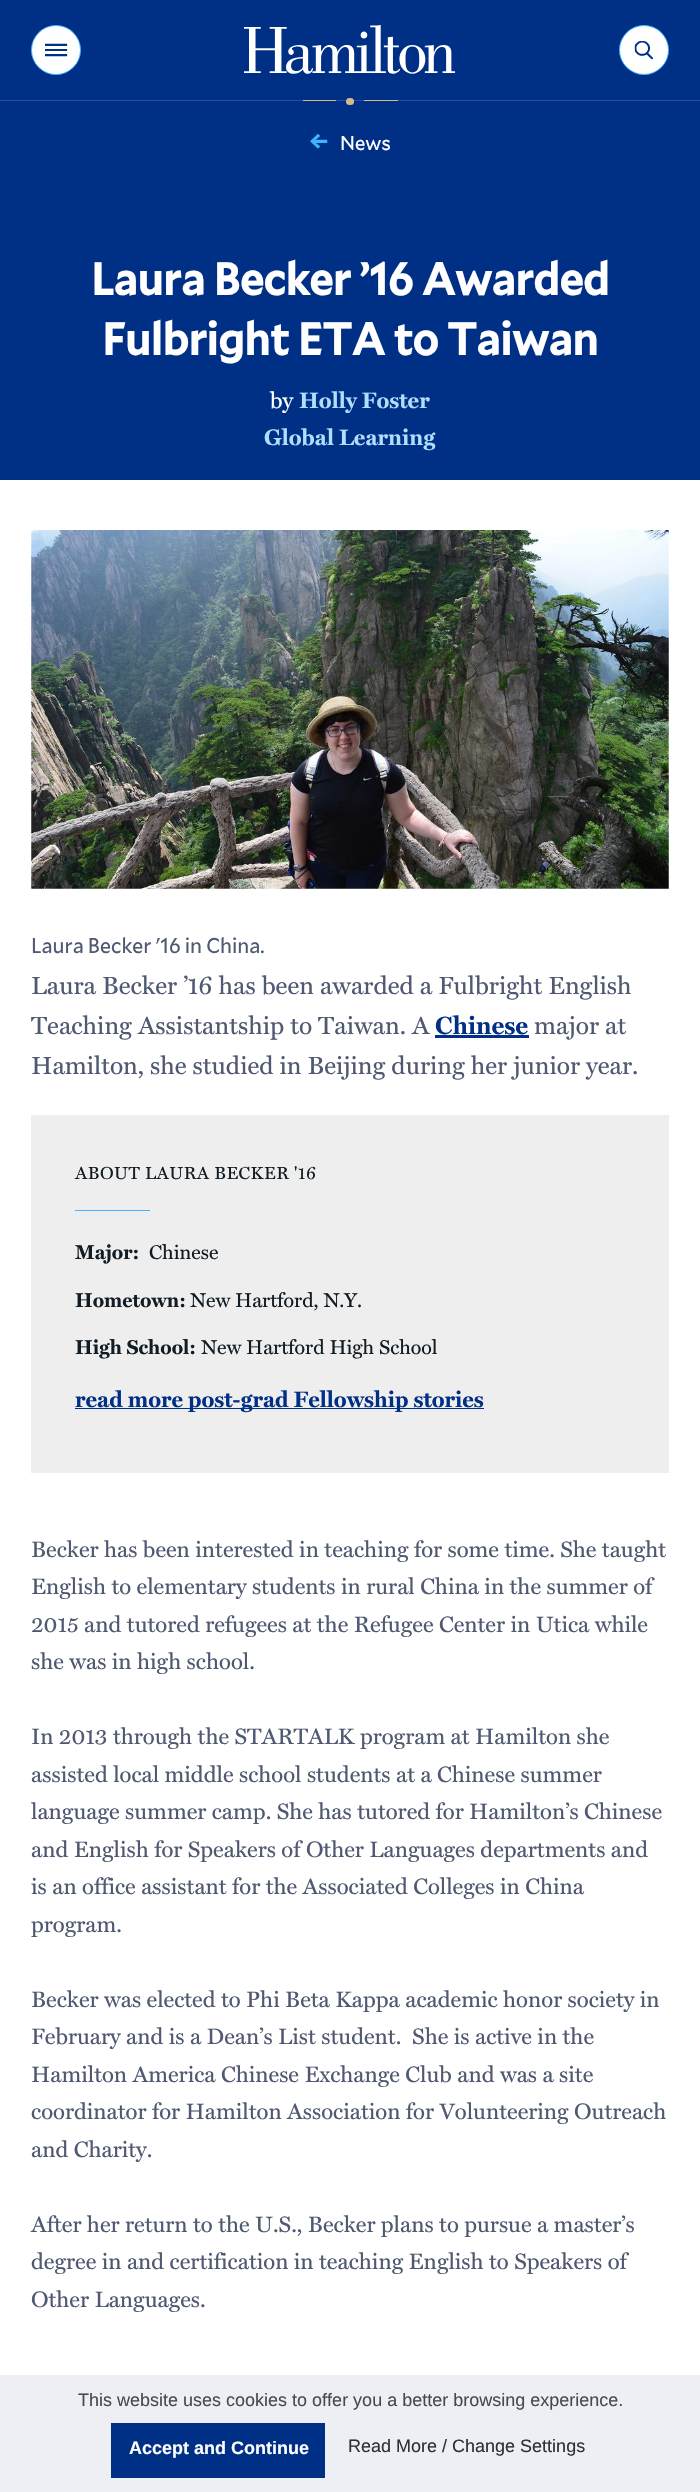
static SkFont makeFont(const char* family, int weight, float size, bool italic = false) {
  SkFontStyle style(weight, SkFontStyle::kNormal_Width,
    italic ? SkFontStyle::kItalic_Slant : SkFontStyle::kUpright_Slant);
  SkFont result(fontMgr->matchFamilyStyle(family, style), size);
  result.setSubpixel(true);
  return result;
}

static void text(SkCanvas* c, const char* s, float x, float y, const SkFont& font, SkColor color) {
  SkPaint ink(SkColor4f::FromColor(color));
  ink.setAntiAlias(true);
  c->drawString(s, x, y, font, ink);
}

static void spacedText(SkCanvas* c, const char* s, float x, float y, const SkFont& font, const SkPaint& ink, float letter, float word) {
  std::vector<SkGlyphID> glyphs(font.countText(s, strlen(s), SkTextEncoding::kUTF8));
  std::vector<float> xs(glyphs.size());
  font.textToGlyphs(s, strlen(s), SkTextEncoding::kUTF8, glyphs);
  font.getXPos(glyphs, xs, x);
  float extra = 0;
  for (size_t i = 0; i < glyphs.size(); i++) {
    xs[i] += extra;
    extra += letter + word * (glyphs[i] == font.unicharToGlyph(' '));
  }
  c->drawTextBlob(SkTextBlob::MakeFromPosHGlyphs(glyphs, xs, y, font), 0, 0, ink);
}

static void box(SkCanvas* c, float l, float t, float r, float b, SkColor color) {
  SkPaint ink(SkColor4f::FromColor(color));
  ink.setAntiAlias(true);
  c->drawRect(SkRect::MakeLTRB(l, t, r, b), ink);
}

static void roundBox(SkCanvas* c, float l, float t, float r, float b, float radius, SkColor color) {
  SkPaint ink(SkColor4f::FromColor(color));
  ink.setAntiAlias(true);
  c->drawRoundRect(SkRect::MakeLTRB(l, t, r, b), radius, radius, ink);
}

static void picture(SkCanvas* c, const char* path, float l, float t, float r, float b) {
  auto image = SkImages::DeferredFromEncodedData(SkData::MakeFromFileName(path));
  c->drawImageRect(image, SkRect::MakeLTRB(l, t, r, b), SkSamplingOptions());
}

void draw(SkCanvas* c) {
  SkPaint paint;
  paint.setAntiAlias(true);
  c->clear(0xffffffff);
  box(c, 0, 0, 700, 100, 0xff002f86);
  box(c, 0, 100, 700, 101, 0xff264e98);
  paint.setColor(0xffffffff);
  c->drawCircle(56, 50, 24.5f, paint);
  paint.setStyle(SkPaint::kStroke_Style);
  paint.setStrokeWidth(1);
  paint.setColor(0xff3fb3ff);
  c->drawCircle(56, 50, 24.5f, paint);
  picture(c, "img_01.png", 45, 43, 68, 57);
  paint.setStyle(SkPaint::kFill_Style);
  paint.setColor(0xffffffff);
  c->drawCircle(644, 50, 24.5f, paint);
  paint.setStyle(SkPaint::kStroke_Style);
  paint.setColor(0xff3fb3ff);
  c->drawCircle(644, 50, 24.5f, paint);
  picture(c, "img_02.png", 634, 41, 653, 60);
  picture(c, "img_03.png", 244, 25, 455, 74);
  box(c, 303, 100, 336, 101, 0xffd6ba8b);
  box(c, 0, 101, 700, 480, 0xff002f86);
  roundBox(c, 346, 98, 354, 105, 3.5f, 0xffd6ba8b);
  box(c, 364, 100, 398, 101, 0xffd6ba8b);
  picture(c, "img_04.png", 310, 134, 328, 149);
  SkFont face1 = makeFont("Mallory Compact", 400, 20);
  text(c, "News", 340, 150, face1, 0xffffffff);
  SkFont face2 = makeFont("Mallory Compact", 700, 45);
  text(c, "Laura Becker ’16 Awarded", 91, 295, face2, 0xffffffff);
  text(c, "Fulbright ETA to Taiwan", 102, 355, face2, 0xffffffff);
  SkFont face3 = makeFont("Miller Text", 400, 22.5f);
  text(c, "by", 270, 408, face3, 0xffffffff);
  SkFont face4 = makeFont("Miller Text", 700, 22.5f);
  text(c, "Holly Foster", 299, 408, face4, 0xffb0defc);
  text(c, "Global Learning", 264, 445, face4, 0xffb0defc);
  picture(c, "img_05.png", 31, 530, 669, 889);
  SkFont face5 = makeFont("Mallory Compact", 400, 21.25f);
  text(c, "Laura Becker '16 in China.", 31, 953, face5, 0xff4f5971);
  SkFont face6 = makeFont("Miller Text", 400, 25);
  text(c, "Laura Becker ’16 has been awarded a Fulbright English", 31, 994, face6, 0xff4f5971);
  text(c, "Teaching Assistantship to Taiwan. A", 31, 1034, face6, 0xff4f5971);
  SkFont face7 = makeFont("Miller Text", 700, 25);
  text(c, "Chinese", 435, 1034, face7, 0xff002f86);
  box(c, 435, 1035, 529, 1038, 0xff002f86);
  text(c, "major at", 534, 1034, face6, 0xff4f5971);
  text(c, "Hamilton, she studied in Beijing during her junior year.", 31, 1074, face6, 0xff4f5971);
  box(c, 31, 1115, 669, 1473, 0xffeeeeee);
  SkFont face8 = makeFont("Miller Text", 400, 17.5f);
  paint.setStyle(SkPaint::kFill_Style);
  paint.setColor(0xff111c24);
  spacedText(c, "ABOUT LAURA BECKER '16", 75, 1179, face8, paint, 0.5f, 0);
  box(c, 75, 1210, 150, 1211, 0xff3fb3ff);
  SkFont face9 = makeFont("Miller Text", 700, 20);
  text(c, "Major:", 75, 1259, face9, 0xff111c24);
  SkFont face10 = makeFont("Miller Text", 400, 20);
  text(c, "Chinese", 149, 1259, face10, 0xff111c24);
  text(c, "Hometown:", 75, 1307, face9, 0xff111c24);
  text(c, "New Hartford, N.Y.", 190, 1307, face10, 0xff111c24);
  text(c, "High School:", 75, 1354, face9, 0xff111c24);
  text(c, "New Hartford High School", 201, 1354, face10, 0xff111c24);
  box(c, 75, 1408, 484, 1409, 0xff002f86);
  text(c, "read more post-grad Fellowship stories", 75, 1407, face4, 0xff002f86);
  text(c, "Becker has been interested in teaching for some time. She taught", 31, 1557, face3, 0xff4f5971);
  text(c, "English to elementary students in rural China in the summer of", 31, 1594, face3, 0xff4f5971);
  text(c, "2015 and tutored refugees at the Refugee Center in Utica while", 31, 1632, face3, 0xff4f5971);
  text(c, "she was in high school.", 31, 1669, face3, 0xff4f5971);
  text(c, "In 2013 through the STARTALK program at Hamilton she", 31, 1744, face3, 0xff4f5971);
  text(c, "assisted local middle school students at a Chinese summer", 31, 1782, face3, 0xff4f5971);
  text(c, "language summer camp. She has tutored for Hamilton’s Chinese", 31, 1819, face3, 0xff4f5971);
  text(c, "and English for Speakers of Other Languages departments and", 31, 1857, face3, 0xff4f5971);
  text(c, "is an office assistant for the Associated Colleges in China", 31, 1894, face3, 0xff4f5971);
  text(c, "program.", 31, 1932, face3, 0xff4f5971);
  text(c, "Becker was elected to Phi Beta Kappa academic honor society in", 31, 2007, face3, 0xff4f5971);
  text(c, "February and is a Dean’s List student.  She is active in the", 31, 2044, face3, 0xff4f5971);
  text(c, "Hamilton America Chinese Exchange Club and was a site", 31, 2082, face3, 0xff4f5971);
  text(c, "coordinator for Hamilton Association for Volunteering Outreach", 31, 2119, face3, 0xff4f5971);
  text(c, "and Charity.", 31, 2157, face3, 0xff4f5971);
  text(c, "After her return to the U.S., Becker plans to pursue a master’s", 31, 2232, face3, 0xff4f5971);
  text(c, "degree in and certification in teaching English to Speakers of", 31, 2269, face3, 0xff4f5971);
  text(c, "Other Languages.", 31, 2307, face3, 0xff4f5971);
  box(c, 0, 2375, 700, 2492, 0xffedeff5);
  SkFont face11 = makeFont("Liberation Sans", 400, 18);
  text(c, "This website uses cookies to offer you a better browsing experience.", 78, 2406, face11, 0xff4a4a4a);
  box(c, 111, 2423, 325, 2478, 0xff002f86);
  SkFont face12 = makeFont("Liberation Sans", 700, 18);
  text(c, "Accept and Continue", 129, 2454, face12, 0xffffffff);
  text(c, "Read More / Change Settings", 348, 2452, face11, 0xff2f3031);
}
